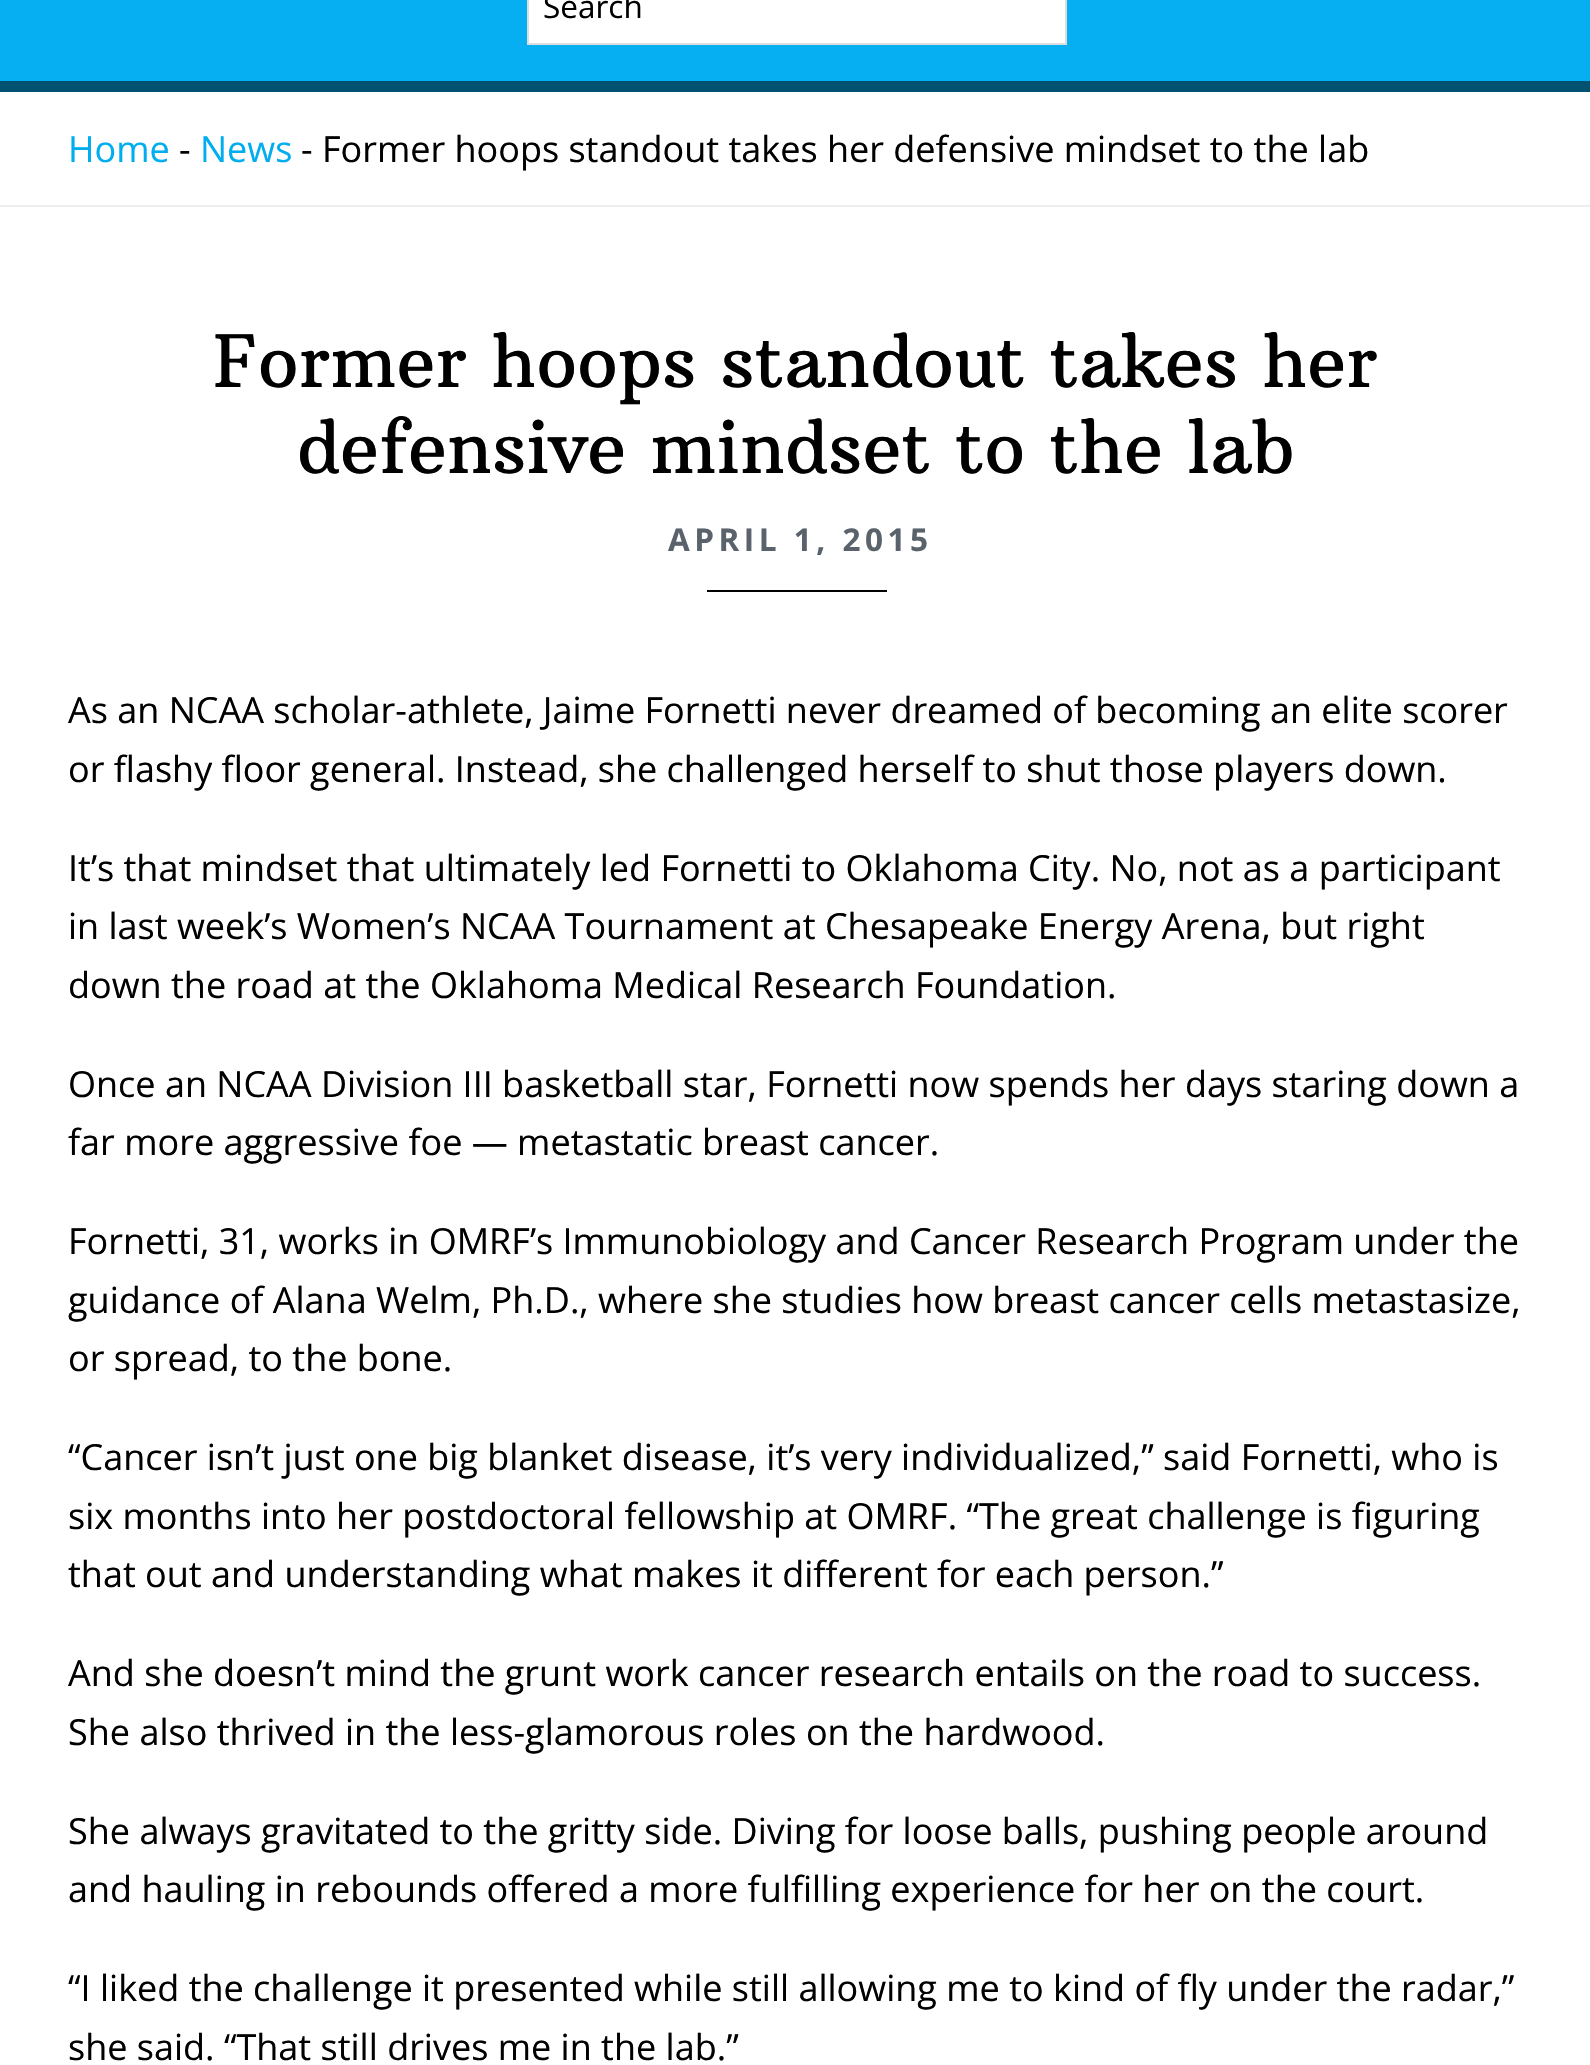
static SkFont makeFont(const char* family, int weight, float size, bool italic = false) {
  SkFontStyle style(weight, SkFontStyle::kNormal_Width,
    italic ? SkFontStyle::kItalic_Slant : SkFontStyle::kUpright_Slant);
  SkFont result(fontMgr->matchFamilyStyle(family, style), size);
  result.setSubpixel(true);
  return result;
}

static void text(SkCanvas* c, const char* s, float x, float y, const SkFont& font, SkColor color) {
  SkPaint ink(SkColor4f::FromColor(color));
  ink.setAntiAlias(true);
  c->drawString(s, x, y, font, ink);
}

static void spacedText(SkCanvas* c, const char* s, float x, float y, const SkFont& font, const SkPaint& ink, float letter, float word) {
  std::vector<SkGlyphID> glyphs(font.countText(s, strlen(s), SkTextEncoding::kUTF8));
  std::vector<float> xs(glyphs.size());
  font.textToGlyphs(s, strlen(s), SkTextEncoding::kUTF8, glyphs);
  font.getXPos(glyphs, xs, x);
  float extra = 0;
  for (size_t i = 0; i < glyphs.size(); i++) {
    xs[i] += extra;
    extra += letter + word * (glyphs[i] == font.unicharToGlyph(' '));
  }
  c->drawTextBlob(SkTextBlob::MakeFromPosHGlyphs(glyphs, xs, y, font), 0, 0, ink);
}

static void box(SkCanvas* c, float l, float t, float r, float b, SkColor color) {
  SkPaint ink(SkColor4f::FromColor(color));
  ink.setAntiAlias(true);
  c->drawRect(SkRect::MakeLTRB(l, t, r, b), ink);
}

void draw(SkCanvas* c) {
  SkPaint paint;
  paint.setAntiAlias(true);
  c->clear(0xff05aff2);
  box(c, 0, 81, 1590, 92, 0xff005270);
  paint.setColor(0xffffffff);
  c->drawRect(SkRect::MakeLTRB(528, -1, 1066, 44), paint);
  paint.setStyle(SkPaint::kStroke_Style);
  paint.setStrokeWidth(2);
  paint.setColor(0xffdddddd);
  c->drawRect(SkRect::MakeLTRB(528, -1, 1066, 44), paint);
  SkFont face1 = makeFont("Open Sans", 400, 31.5f);
  text(c, "Search", 543, 18, face1, 0xff000000);
  box(c, 0, 92, 1590, 205, 0xffffffff);
  box(c, 0, 205, 1590, 207, 0xffeeeeee);
  SkFont face2 = makeFont("Open Sans", 400, 36);
  text(c, "Home", 68, 162, face2, 0xff00aeef);
  text(c, "-", 179, 162, face2, 0xff000000);
  text(c, "News", 200, 162, face2, 0xff00aeef);
  text(c, "- Former hoops standout takes her defensive mindset to the lab", 301, 162, face2, 0xff000000);
  box(c, 0, 207, 1590, 2065, 0xffffffff);
  SkFont face3 = makeFont("Arbutus Slab", 400, 72);
  text(c, "Former hoops standout takes her", 213, 387, face3, 0xff000000);
  text(c, "defensive mindset to the lab", 297, 473, face3, 0xff000000);
  SkFont face4 = makeFont("Open Sans", 700, 31.5f);
  paint.setStyle(SkPaint::kFill_Style);
  paint.setColor(0xff5a636c);
  spacedText(c, "APRIL 1, 2015", 668, 551, face4, paint, 4.5f, 0);
  box(c, 707, 590, 887, 592, 0xff000000);
  text(c, "As an NCAA scholar-athlete, Jaime Fornetti never dreamed of becoming an elite scorer", 68, 723, face2, 0xff000000);
  text(c, "or flashy floor general. Instead, she challenged herself to shut those players down.", 68, 782, face2, 0xff000000);
  text(c, "It’s that mindset that ultimately led Fornetti to Oklahoma City. No, not as a participant", 68, 881, face2, 0xff000000);
  text(c, "in last week’s Women’s NCAA Tournament at Chesapeake Energy Arena, but right", 68, 939, face2, 0xff000000);
  text(c, "down the road at the Oklahoma Medical Research Foundation.", 68, 998, face2, 0xff000000);
  text(c, "Once an NCAA Division III basketball star, Fornetti now spends her days staring down a", 68, 1097, face2, 0xff000000);
  text(c, "far more aggressive foe — metastatic breast cancer.", 68, 1155, face2, 0xff000000);
  text(c, "Fornetti, 31, works in OMRF’s Immunobiology and Cancer Research Program under the", 68, 1254, face2, 0xff000000);
  text(c, "guidance of Alana Welm, Ph.D., where she studies how breast cancer cells metastasize,", 68, 1313, face2, 0xff000000);
  text(c, "or spread, to the bone.", 68, 1371, face2, 0xff000000);
  text(c, "“Cancer isn’t just one big blanket disease, it’s very individualized,” said Fornetti, who is", 68, 1470, face2, 0xff000000);
  text(c, "six months into her postdoctoral fellowship at OMRF. “The great challenge is figuring", 68, 1529, face2, 0xff000000);
  text(c, "that out and understanding what makes it different for each person.”", 68, 1587, face2, 0xff000000);
  text(c, "And she doesn’t mind the grunt work cancer research entails on the road to success.", 68, 1686, face2, 0xff000000);
  text(c, "She also thrived in the less-glamorous roles on the hardwood.", 68, 1745, face2, 0xff000000);
  text(c, "She always gravitated to the gritty side. Diving for loose balls, pushing people around", 68, 1844, face2, 0xff000000);
  text(c, "and hauling in rebounds offered a more fulfilling experience for her on the court.", 68, 1902, face2, 0xff000000);
  text(c, "“I liked the challenge it presented while still allowing me to kind of fly under the radar,”", 68, 2001, face2, 0xff000000);
  text(c, "she said. “That still drives me in the lab.”", 68, 2060, face2, 0xff000000);
}
